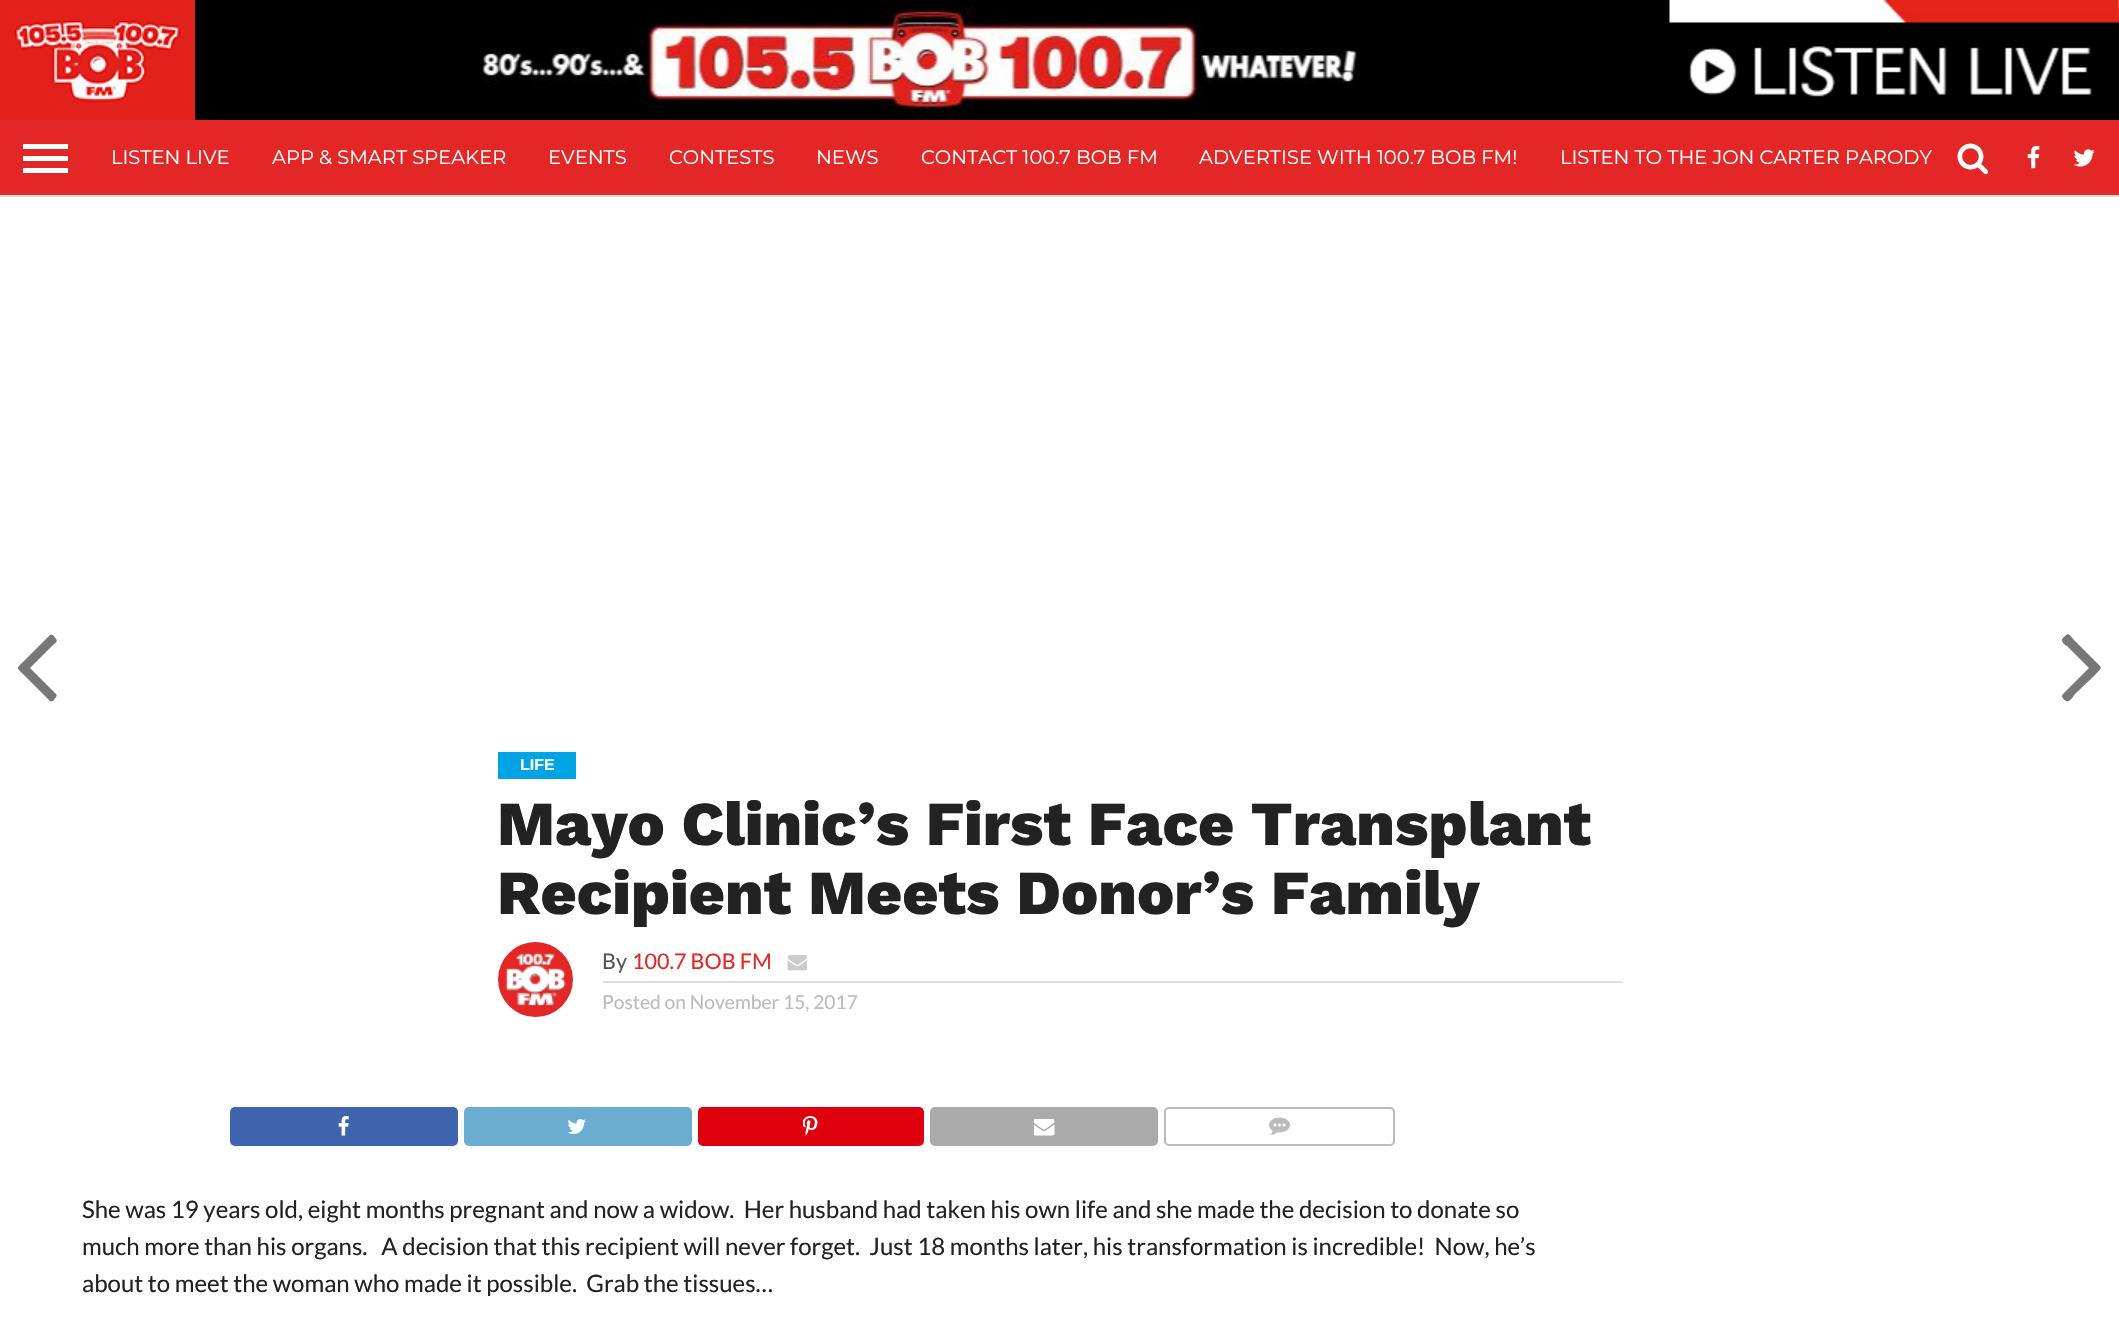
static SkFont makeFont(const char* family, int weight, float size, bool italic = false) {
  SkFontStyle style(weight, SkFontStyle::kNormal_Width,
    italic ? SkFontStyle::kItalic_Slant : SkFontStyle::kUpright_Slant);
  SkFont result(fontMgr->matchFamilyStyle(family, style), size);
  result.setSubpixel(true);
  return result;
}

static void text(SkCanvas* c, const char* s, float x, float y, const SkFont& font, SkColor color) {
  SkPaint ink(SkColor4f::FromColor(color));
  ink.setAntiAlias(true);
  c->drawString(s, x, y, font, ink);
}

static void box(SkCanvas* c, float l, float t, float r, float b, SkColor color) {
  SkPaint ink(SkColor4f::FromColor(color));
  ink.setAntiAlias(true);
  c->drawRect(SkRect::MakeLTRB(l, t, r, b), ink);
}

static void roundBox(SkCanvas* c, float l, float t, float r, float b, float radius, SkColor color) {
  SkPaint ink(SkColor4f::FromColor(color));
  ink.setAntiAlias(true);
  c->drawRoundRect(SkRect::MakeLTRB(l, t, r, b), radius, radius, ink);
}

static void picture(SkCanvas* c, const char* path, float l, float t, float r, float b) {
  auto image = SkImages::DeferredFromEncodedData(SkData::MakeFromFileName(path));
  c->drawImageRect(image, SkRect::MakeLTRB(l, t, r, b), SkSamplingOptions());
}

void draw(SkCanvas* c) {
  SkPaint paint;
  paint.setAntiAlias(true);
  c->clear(0xffffffff);
  picture(c, "img_01.png", 195, 0, 2119, 120);
  picture(c, "img_02.png", 0, 0, 195, 120);
  picture(c, "img_03.png", 1669, 0, 2119, 97);
  box(c, 0, 120, 2119, 195, 0xffe22726);
  box(c, 0, 195, 2119, 197, 0xffdddddd);
  box(c, 23, 144, 68, 149, 0xffffffff);
  box(c, 23, 156, 68, 161, 0xffffffff);
  box(c, 23, 168, 68, 173, 0xffffffff);
  SkFont face1 = makeFont("Montserrat", 400, 19.5f);
  text(c, "LISTEN LIVE", 111, 164, face1, 0xffffffff);
  text(c, "APP & SMART SPEAKER", 272, 164, face1, 0xffffffff);
  text(c, "EVENTS", 548, 164, face1, 0xffffffff);
  text(c, "CONTESTS", 669, 164, face1, 0xffffffff);
  text(c, "NEWS", 816, 164, face1, 0xffffffff);
  text(c, "CONTACT 100.7 BOB FM", 921, 164, face1, 0xffffffff);
  text(c, "ADVERTISE WITH 100.7 BOB FM!", 1199, 164, face1, 0xffffffff);
  text(c, "LISTEN TO THE JON CARTER PARODY", 1560, 164, face1, 0xffffffff);
  picture(c, "img_04.png", 1957, 143, 1989, 175);
  picture(c, "img_05.png", 2027, 145, 2040, 169);
  picture(c, "img_06.png", 2073, 149, 2095, 167);
  paint.setColor(0xff777777);
  c->drawPath(SkPathBuilder().moveTo(56, 639).cubicTo(59, 641, 53, 645, 52, 646).lineTo(30, 668).lineTo(56, 694).cubicTo(58, 696, 55, 698, 54, 700).cubicTo(53, 701, 51, 702, 50, 701).lineTo(24, 675).cubicTo(16, 667, 16, 669, 24, 661).lineTo(50, 635).cubicTo(52, 633, 55, 637, 56, 639).close().detach(), paint);
  c->drawPath(SkPathBuilder().moveTo(2100, 666).cubicTo(2103, 669, 2095, 674, 2095, 675).lineTo(2074, 695).cubicTo(2074, 696, 2069, 703, 2066, 701).cubicTo(2065, 700, 2060, 697, 2063, 694).lineTo(2089, 668).lineTo(2067, 646).cubicTo(2066, 646, 2061, 642, 2062, 639).lineTo(2065, 636).cubicTo(2069, 632, 2070, 636, 2074, 640).close().detach(), paint);
  box(c, 498, 752, 576, 779, 0xff00a3e3);
  SkFont face2 = makeFont("Liberation Sans", 700, 16);
  text(c, "LIFE", 520, 770, face2, 0xffffffff);
  SkFont face3 = makeFont("Work Sans", 800, 62.4f);
  text(c, "Mayo Clinic’s First Face Transplant", 497, 845, face3, 0xff222222);
  text(c, "Recipient Meets Donor’s Family", 497, 914, face3, 0xff222222);
  picture(c, "img_07.png", 498, 942, 573, 1017);
  box(c, 603, 981, 1623, 983, 0xffdddddd);
  SkFont face4 = makeFont("Lato", 400, 21.5f);
  text(c, "By", 602, 969, face4, 0xff555555);
  text(c, "100.7 BOB FM", 632, 969, face4, 0xffe22726);
  picture(c, "img_08.png", 787, 955, 807, 971);
  SkFont face5 = makeFont("Lato", 400, 19.25f);
  text(c, "Posted on November 15, 2017", 602, 1009, face5, 0xffbbbbbb);
  roundBox(c, 230, 1107, 458, 1146, 5, 0xff3e64ad);
  picture(c, "img_09.png", 338, 1116, 349, 1136);
  roundBox(c, 464, 1107, 692, 1146, 5, 0xff6aadd1);
  picture(c, "img_10.png", 567, 1119, 586, 1134);
  roundBox(c, 698, 1107, 924, 1146, 5, 0xffde010d);
  picture(c, "img_11.png", 803, 1116, 818, 1136);
  roundBox(c, 930, 1107, 1158, 1146, 5, 0xffaaaaaa);
  picture(c, "img_12.png", 1034, 1119, 1055, 1136);
  paint.setStyle(SkPaint::kStroke_Style);
  paint.setStrokeWidth(2);
  paint.setColor(0xffbbbbbb);
  c->drawRoundRect(SkRect::MakeLTRB(1165, 1108, 1394, 1145), 4, 4, paint);
  picture(c, "img_13.png", 1269, 1117, 1290, 1135);
  SkFont face6 = makeFont("Lato", 400, 24);
  text(c, "She was 19 years old, eight months pregnant and now a widow.  Her husband had taken his own life and she made the decision to donate so", 82, 1218, face6, 0xff222222);
  text(c, "much more than his organs.   A decision that this recipient will never forget.  Just 18 months later, his transformation is incredible!  Now, he’s", 82, 1255, face6, 0xff222222);
  text(c, "about to meet the woman who made it possible.  Grab the tissues…", 82, 1292, face6, 0xff222222);
}
